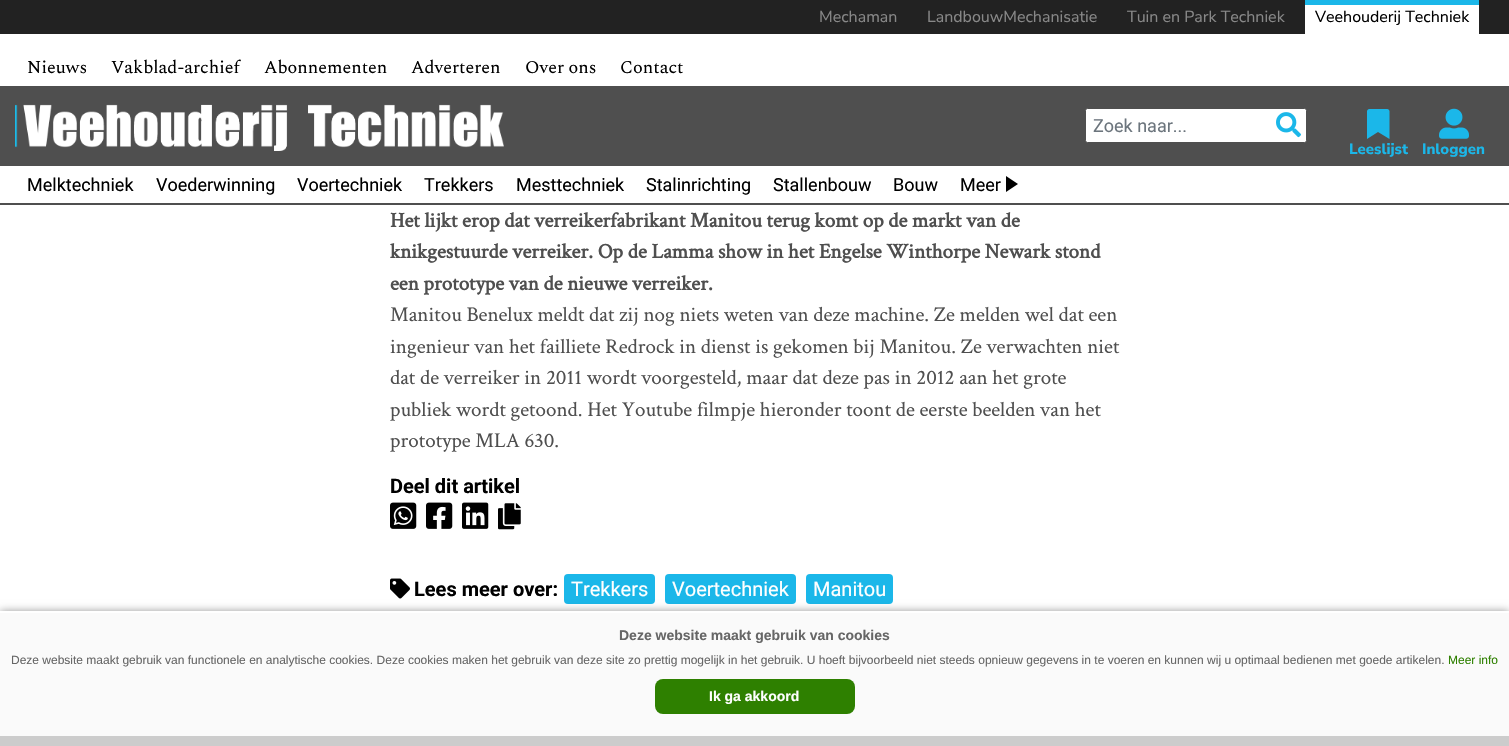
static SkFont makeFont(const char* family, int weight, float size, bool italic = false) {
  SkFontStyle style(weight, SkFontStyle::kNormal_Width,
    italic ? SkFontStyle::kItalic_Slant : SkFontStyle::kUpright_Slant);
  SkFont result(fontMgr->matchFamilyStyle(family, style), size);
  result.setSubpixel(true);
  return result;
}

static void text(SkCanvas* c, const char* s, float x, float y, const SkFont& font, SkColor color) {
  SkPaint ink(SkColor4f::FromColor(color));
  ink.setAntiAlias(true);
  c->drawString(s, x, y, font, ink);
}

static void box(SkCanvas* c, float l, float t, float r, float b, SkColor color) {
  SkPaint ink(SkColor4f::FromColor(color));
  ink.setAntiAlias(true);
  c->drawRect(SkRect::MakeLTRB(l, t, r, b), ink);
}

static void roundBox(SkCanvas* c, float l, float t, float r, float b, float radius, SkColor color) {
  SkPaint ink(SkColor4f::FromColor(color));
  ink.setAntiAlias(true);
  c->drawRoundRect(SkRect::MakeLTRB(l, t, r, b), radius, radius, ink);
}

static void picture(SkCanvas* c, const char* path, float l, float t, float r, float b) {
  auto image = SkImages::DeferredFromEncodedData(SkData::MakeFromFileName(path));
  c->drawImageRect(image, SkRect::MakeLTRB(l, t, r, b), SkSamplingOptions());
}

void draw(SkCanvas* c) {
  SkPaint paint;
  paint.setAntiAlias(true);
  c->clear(0xffffffff);
  box(c, 0, 0, 1509, 34, 0xff222222);
  SkFont face1 = makeFont("Nunito Sans", 400, 16);
  text(c, "Mechaman", 819, 22, face1, 0xff888888);
  text(c, "LandbouwMechanisatie", 927, 22, face1, 0xff888888);
  text(c, "Tuin en Park Techniek", 1127, 22, face1, 0xff888888);
  box(c, 1305, 5, 1479, 34, 0xffffffff);
  box(c, 1305, 0, 1479, 5, 0xff1bb7e9);
  text(c, "Veehouderij Techniek", 1315, 22, face1, 0xff000000);
  SkFont face2 = makeFont("Spectral", 400, 18);
  text(c, "Nieuws", 27, 73, face2, 0xff000000);
  text(c, "Vakblad-archief", 111, 73, face2, 0xff000000);
  text(c, "Abonnementen", 264, 73, face2, 0xff000000);
  text(c, "Adverteren", 411, 73, face2, 0xff000000);
  text(c, "Over ons", 525, 73, face2, 0xff000000);
  text(c, "Contact", 620, 73, face2, 0xff000000);
  box(c, 0, 86, 1509, 166, 0xff4f4f4f);
  picture(c, "img_01.png", 15, 104, 504, 151);
  paint.setColor(0xffffffff);
  c->drawRoundRect(SkRect::MakeLTRB(1085.5f, 108.5f, 1306.5f, 142.5f), 2, 2, paint);
  paint.setStyle(SkPaint::kStroke_Style);
  paint.setStrokeWidth(1);
  paint.setColor(0xff4f4f4f);
  c->drawRoundRect(SkRect::MakeLTRB(1085.5f, 108.5f, 1306.5f, 142.5f), 2, 2, paint);
  SkFont face3 = makeFont("Roboto", 400, 18);
  text(c, "Zoek naar...", 1093, 132, face3, 0xff6c757d);
  picture(c, "img_02.png", 1276, 112, 1301, 138);
  paint.setStyle(SkPaint::kFill_Style);
  paint.setColor(0xff1bb7e9);
  c->drawPath(SkPathBuilder().moveTo(1367, 139).lineTo(1367, 111).cubicTo(1367.5f, 108.5f, 1370.5f, 109, 1372.5f, 109).lineTo(1384, 109).cubicTo(1386, 109, 1389, 108.5f, 1389.5f, 111).lineTo(1389.5f, 139).lineTo(1378, 132).close().detach(), paint);
  SkFont face4 = makeFont("Nunito Sans", 800, 15);
  text(c, "Leeslijst", 1349, 154, face4, 0xff1bb7e9);
  picture(c, "img_03.png", 1439, 108, 1469, 139);
  text(c, "Inloggen", 1422, 154, face4, 0xff1bb7e9);
  box(c, 0, 203, 1509, 205, 0xff4f4f4f);
  text(c, "Melktechniek", 27, 191, face3, 0xff000000);
  text(c, "Voederwinning", 156, 191, face3, 0xff000000);
  text(c, "Voertechniek", 297, 191, face3, 0xff000000);
  text(c, "Trekkers", 424, 191, face3, 0xff000000);
  text(c, "Mesttechniek", 516, 191, face3, 0xff000000);
  text(c, "Stalinrichting", 646, 191, face3, 0xff000000);
  text(c, "Stallenbouw", 773, 191, face3, 0xff000000);
  text(c, "Bouw", 893, 191, face3, 0xff000000);
  text(c, "Meer", 960, 191, face3, 0xff000000);
  paint.setColor(0xff000000);
  c->drawPath(SkPathBuilder().moveTo(1006, 192).lineTo(1006, 176).lineTo(1018, 184).close().detach(), paint);
  SkFont face5 = makeFont("Crimson Text", 700, 21);
  text(c, "Het lijkt erop dat verreikerfabrikant Manitou terug komt op de markt van de", 390, 227, face5, 0xff4f4f4f);
  text(c, "knikgestuurde verreiker. Op de Lamma show in het Engelse Winthorpe Newark stond", 390, 258, face5, 0xff4f4f4f);
  text(c, "een prototype van de nieuwe verreiker.", 390, 290, face5, 0xff4f4f4f);
  SkFont face6 = makeFont("Crimson Text", 400, 21);
  text(c, "Manitou Benelux meldt dat zij nog niets weten van deze machine. Ze melden wel dat een", 390, 321, face6, 0xff4f4f4f);
  text(c, "ingenieur van het failliete Redrock in dienst is gekomen bij Manitou. Ze verwachten niet", 390, 353, face6, 0xff4f4f4f);
  text(c, "dat de verreiker in 2011 wordt voorgesteld, maar dat deze pas in 2012 aan het grote", 390, 384, face6, 0xff4f4f4f);
  text(c, "publiek wordt getoond. Het Youtube filmpje hieronder toont de eerste beelden van het", 390, 416, face6, 0xff4f4f4f);
  text(c, "prototype MLA 630.", 390, 447, face6, 0xff4f4f4f);
  SkFont face7 = makeFont("Roboto", 700, 20);
  text(c, "Deel dit artikel", 390, 493, face7, 0xff000000);
  picture(c, "img_04.png", 390, 502, 417, 529);
  picture(c, "img_05.png", 426, 502, 453, 529);
  picture(c, "img_06.png", 462, 502, 489, 529);
  picture(c, "img_07.png", 498, 503, 521, 530);
  picture(c, "img_08.png", 390, 578, 410, 599);
  text(c, "Lees meer over:", 414, 596, face7, 0xff000000);
  roundBox(c, 564, 574, 655, 604, 4, 0xff1bb7e9);
  SkFont face8 = makeFont("Roboto", 400, 20);
  text(c, "Trekkers", 571, 596, face8, 0xffffffff);
  roundBox(c, 665, 574, 796, 604, 4, 0xff1bb7e9);
  text(c, "Voertechniek", 672, 596, face8, 0xffffffff);
  roundBox(c, 806, 574, 893, 604, 4, 0xff1bb7e9);
  text(c, "Manitou", 813, 596, face8, 0xffffffff);
  paint.setColor(0x66000000);
  paint.setMaskFilter(SkMaskFilter::MakeBlur(kNormal_SkBlurStyle, 4));
  c->drawRect(SkRect::MakeLTRB(0, 611, 1509, 746), paint);
  paint.setMaskFilter(nullptr);
  box(c, 0, 613, 1509, 736, 0xfffafafa);
  box(c, 0, 611, 1509, 613, 0xffffffff);
  box(c, 0, 736, 1509, 746, 0xffcccccc);
  SkFont face9 = makeFont("Liberation Sans", 700, 14);
  text(c, "Deze website maakt gebruik van cookies", 619, 640, face9, 0xff666666);
  SkFont face10 = makeFont("Liberation Sans", 400, 12);
  text(c, "Deze website maakt gebruik van functionele en analytische cookies. Deze cookies maken het gebruik van deze site zo prettig mogelijk in het gebruik. U hoeft bijvoorbeeld niet steeds opnieuw gegevens in te voeren en kunnen wij u optimaal bedienen met goede artikelen.", 11, 664, face10, 0xff666666);
  text(c, "Meer info", 1448, 664, face10, 0xff2e8000);
  roundBox(c, 655, 679, 855, 714, 8, 0xff2e8000);
  text(c, "Ik ga akkoord", 709, 701, face9, 0xffffffff);
}
